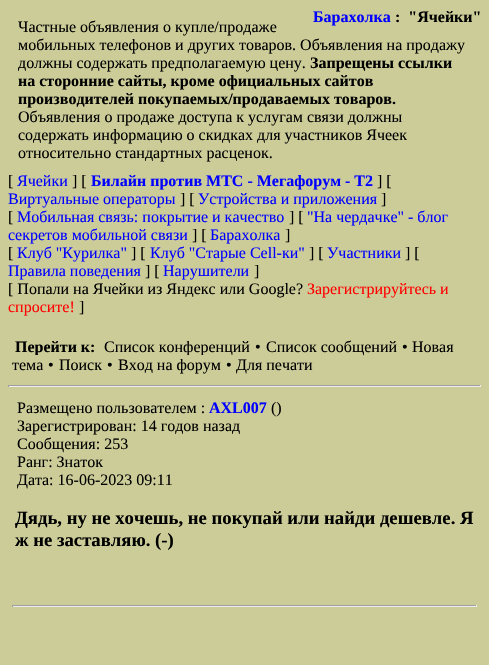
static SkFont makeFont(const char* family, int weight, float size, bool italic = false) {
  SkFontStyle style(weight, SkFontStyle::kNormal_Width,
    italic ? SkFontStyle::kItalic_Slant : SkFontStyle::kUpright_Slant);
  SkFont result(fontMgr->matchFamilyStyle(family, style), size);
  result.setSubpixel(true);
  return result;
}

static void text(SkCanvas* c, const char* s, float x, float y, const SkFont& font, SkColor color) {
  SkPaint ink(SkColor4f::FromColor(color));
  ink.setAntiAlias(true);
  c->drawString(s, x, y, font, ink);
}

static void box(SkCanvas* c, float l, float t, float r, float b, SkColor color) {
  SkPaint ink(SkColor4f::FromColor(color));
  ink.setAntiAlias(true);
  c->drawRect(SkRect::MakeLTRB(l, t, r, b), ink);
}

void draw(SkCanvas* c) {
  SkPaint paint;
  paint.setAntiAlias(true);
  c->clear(0xffcccc99);
  SkFont face1 = makeFont("Liberation Serif", 700, 16);
  text(c, "Барахолка", 313, 22, face1, 0xff0000ff);
  text(c, ":  \"Ячейки\"", 395, 22, face1, 0xff000000);
  SkFont face2 = makeFont("Liberation Serif", 400, 16);
  text(c, "Частные объявления о купле/продаже", 18, 32, face2, 0xff000000);
  text(c, "мобильных телефонов и других товаров. Объявления на продажу", 18, 50, face2, 0xff000000);
  text(c, "должны содержать предполагаемую цену.", 18, 68, face2, 0xff000000);
  text(c, "Запрещены ссылки", 310, 68, face1, 0xff000000);
  text(c, "на сторонние сайты, кроме официальных сайтов", 18, 86, face1, 0xff000000);
  text(c, "производителей покупаемых/продаваемых товаров.", 18, 104, face1, 0xff000000);
  text(c, "Объявления о продаже доступа к услугам связи должны", 18, 122, face2, 0xff000000);
  text(c, "содержать информацию о скидках для участников Ячеек", 18, 140, face2, 0xff000000);
  text(c, "относительно стандартных расценок.", 18, 158, face2, 0xff000000);
  text(c, "[", 8, 186, face2, 0xff000000);
  text(c, "Ячейки", 17, 186, face2, 0xff0000ff);
  text(c, "] [", 72, 186, face2, 0xff000000);
  text(c, "Билайн против МТС - Мегафорум - T2", 91, 186, face1, 0xff0000ff);
  text(c, "] [", 377, 186, face2, 0xff000000);
  text(c, "Виртуальные операторы", 8, 204, face2, 0xff0000ff);
  text(c, "] [", 180, 204, face2, 0xff000000);
  text(c, "Устройства и приложения", 198, 204, face2, 0xff0000ff);
  text(c, "]", 381, 204, face2, 0xff000000);
  text(c, "[", 8, 222, face2, 0xff000000);
  text(c, "Мобильная связь: покрытие и качество", 17, 222, face2, 0xff0000ff);
  text(c, "] [", 289, 222, face2, 0xff000000);
  text(c, "\"На чердачке\" - блог", 307, 222, face2, 0xff0000ff);
  text(c, "секретов мобильной связи", 8, 240, face2, 0xff0000ff);
  text(c, "] [", 192, 240, face2, 0xff000000);
  text(c, "Барахолка", 210, 240, face2, 0xff0000ff);
  text(c, "]", 285, 240, face2, 0xff000000);
  text(c, "[", 8, 258, face2, 0xff000000);
  text(c, "Клуб \"Курилка\"", 17, 258, face2, 0xff0000ff);
  text(c, "] [", 131, 258, face2, 0xff000000);
  text(c, "Клуб \"Старые Сell-ки\"", 150, 258, face2, 0xff0000ff);
  text(c, "] [", 309, 258, face2, 0xff000000);
  text(c, "Участники", 327, 258, face2, 0xff0000ff);
  text(c, "] [", 405, 258, face2, 0xff000000);
  text(c, "Правила поведения", 8, 276, face2, 0xff0000ff);
  text(c, "] [", 145, 276, face2, 0xff000000);
  text(c, "Нарушители", 163, 276, face2, 0xff0000ff);
  text(c, "]", 254, 276, face2, 0xff000000);
  text(c, "[ Попали на Ячейки из Яндекс или Google?", 8, 294, face2, 0xff000000);
  text(c, "Зарегистрируйтесь и", 307, 294, face2, 0xffff0000);
  text(c, "спросите!", 8, 312, face2, 0xffff0000);
  text(c, "]", 79, 312, face2, 0xff000000);
  text(c, "Перейти к:", 15, 352, face1, 0xff000000);
  text(c, "Список конференций", 104, 352, face2, 0xff000000);
  text(c, "•", 255, 352, face2, 0xff000000);
  text(c, "Список сообщений", 266, 352, face2, 0xff000000);
  text(c, "•", 402, 352, face2, 0xff000000);
  text(c, "Новая", 412, 352, face2, 0xff000000);
  text(c, "тема", 12, 370, face2, 0xff000000);
  box(c, 34, 355, 39, 356, 0xffcccc99);
  text(c, "•", 48, 370, face2, 0xff000000);
  text(c, "Поиск", 59, 370, face2, 0xff000000);
  text(c, "•", 107, 370, face2, 0xff000000);
  paint.setStyle(SkPaint::kStroke_Style);
  paint.setStrokeWidth(1);
  paint.setColor(0xffcccc99);
  c->drawRect(SkRect::MakeLTRB(113.5f, 355.5f, 225.5f, 373.5f), paint);
  text(c, "Вход на форум", 118, 370, face2, 0xff000000);
  text(c, "•", 226, 370, face2, 0xff000000);
  c->drawRect(SkRect::MakeLTRB(231.5f, 355.5f, 317.5f, 373.5f), paint);
  text(c, "Для печати", 236, 370, face2, 0xff000000);
  box(c, 8, 385, 481, 386, 0xff9f9f9f);
  box(c, 480, 385, 481, 387, 0xffeeeeee);
  box(c, 8, 386, 481, 387, 0xffeeeeee);
  box(c, 8, 385, 9, 387, 0xff9f9f9f);
  text(c, "Размещено пользователем :", 17, 413, face2, 0xff000000);
  text(c, "AXL007", 209, 413, face1, 0xff0000ff);
  text(c, "()", 271, 413, face2, 0xff000000);
  text(c, "Зарегистрирован: 14 годов назад", 17, 431, face2, 0xff000000);
  text(c, "Сообщения: 253", 17, 449, face2, 0xff000000);
  text(c, "Ранг: Знаток", 17, 467, face2, 0xff000000);
  text(c, "Дата: 16-06-2023 09:11", 17, 485, face2, 0xff000000);
  SkFont face3 = makeFont("Liberation Serif", 700, 18.7f);
  text(c, "Дядь, ну не хочешь, не покупай или найди дешевле. Я", 15, 524, face3, 0xff000000);
  text(c, "ж не заставляю. (-)", 15, 546, face3, 0xff000000);
  box(c, 12, 605, 477, 606, 0xff9f9f9f);
  box(c, 476, 605, 477, 607, 0xffeeeeee);
  box(c, 12, 606, 477, 607, 0xffeeeeee);
  box(c, 12, 605, 13, 607, 0xff9f9f9f);
}
